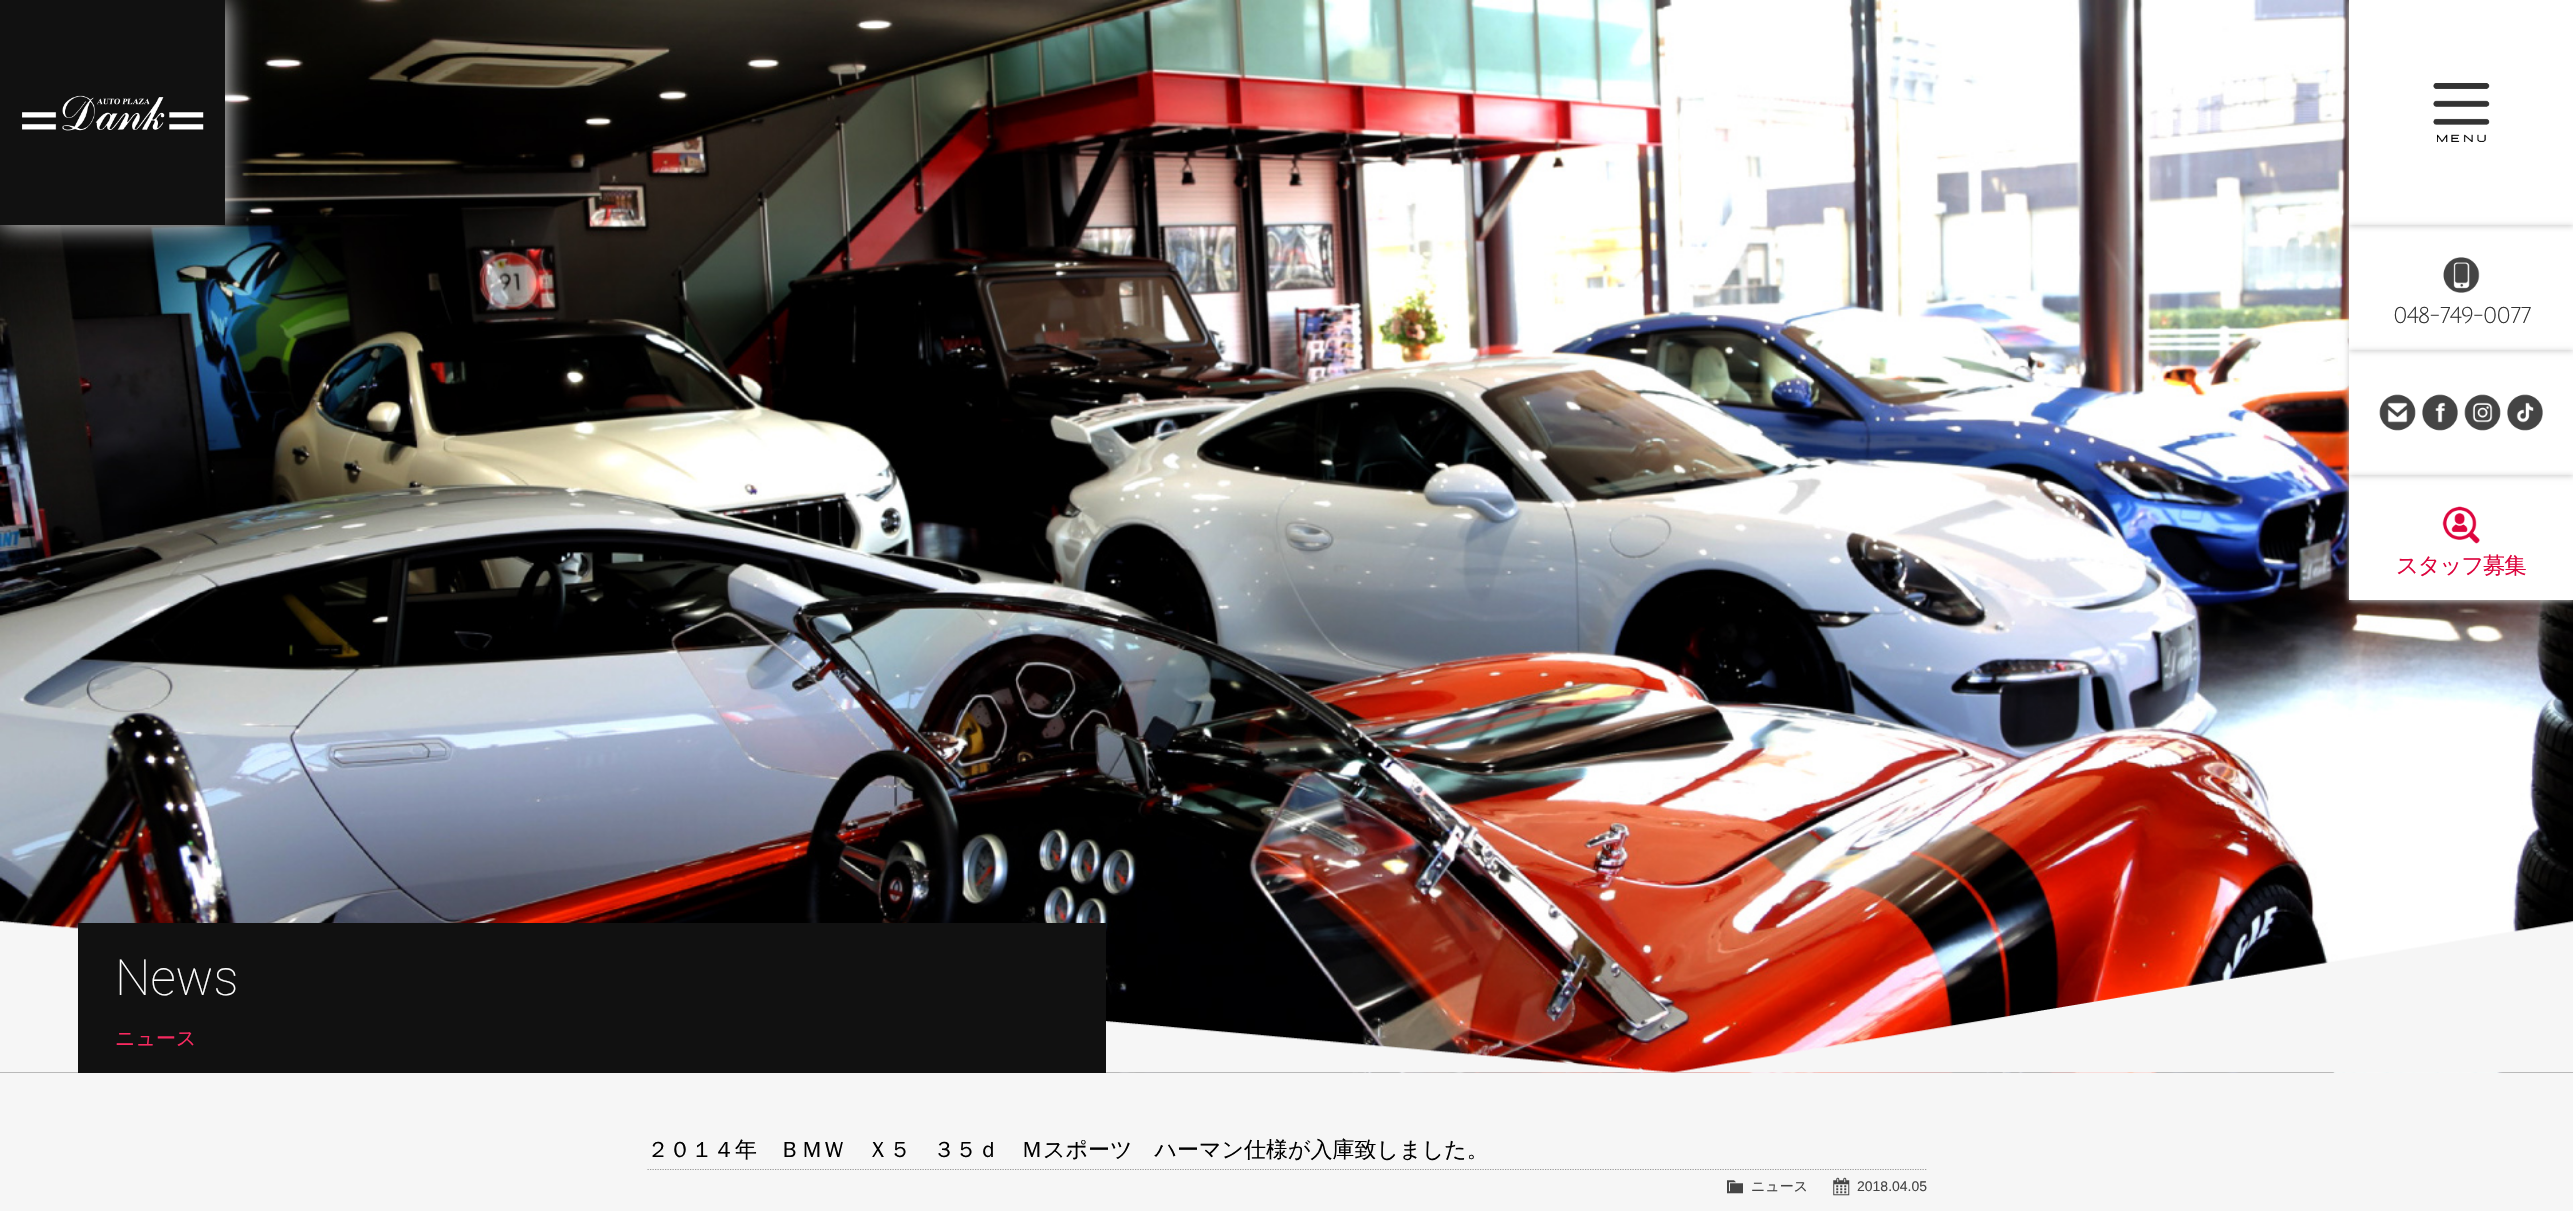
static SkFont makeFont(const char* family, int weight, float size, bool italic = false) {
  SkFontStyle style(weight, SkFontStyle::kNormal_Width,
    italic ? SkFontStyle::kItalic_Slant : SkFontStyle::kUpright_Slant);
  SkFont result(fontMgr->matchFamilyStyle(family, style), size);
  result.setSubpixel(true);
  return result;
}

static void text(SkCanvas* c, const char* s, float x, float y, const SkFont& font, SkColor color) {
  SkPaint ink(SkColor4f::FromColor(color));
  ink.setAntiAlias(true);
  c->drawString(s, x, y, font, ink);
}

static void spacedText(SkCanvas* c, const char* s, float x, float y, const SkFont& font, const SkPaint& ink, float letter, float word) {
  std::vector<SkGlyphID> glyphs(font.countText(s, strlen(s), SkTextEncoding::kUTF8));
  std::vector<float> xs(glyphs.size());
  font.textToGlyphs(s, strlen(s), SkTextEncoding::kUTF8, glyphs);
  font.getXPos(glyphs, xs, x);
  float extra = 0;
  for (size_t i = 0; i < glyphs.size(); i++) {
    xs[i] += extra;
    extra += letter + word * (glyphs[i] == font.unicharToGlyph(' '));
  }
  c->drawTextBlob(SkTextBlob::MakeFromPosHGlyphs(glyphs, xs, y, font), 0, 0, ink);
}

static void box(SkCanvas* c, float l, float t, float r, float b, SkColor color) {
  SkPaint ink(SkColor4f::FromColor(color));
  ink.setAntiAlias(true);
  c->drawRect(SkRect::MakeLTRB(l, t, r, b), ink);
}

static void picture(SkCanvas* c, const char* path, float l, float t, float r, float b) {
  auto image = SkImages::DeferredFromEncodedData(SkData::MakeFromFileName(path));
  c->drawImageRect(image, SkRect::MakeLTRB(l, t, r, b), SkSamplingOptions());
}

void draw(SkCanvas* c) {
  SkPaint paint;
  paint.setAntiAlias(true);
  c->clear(0xfff6f6f6);
  picture(c, "img_08.png", 0, 0, 2573, 1073);
  paint.setColor(0xffcccccc);
  paint.setMaskFilter(SkMaskFilter::MakeBlur(kNormal_SkBlurStyle, 3));
  c->drawRect(SkRect::MakeLTRB(2349, 1, 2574, 601), paint);
  paint.setMaskFilter(nullptr);
  box(c, 2349, 0, 2573, 600, 0xffffffff);
  c->save();
  c->clipRect(SkRect::MakeLTRB(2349, 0, 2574, 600));
  c->clipRect(SkRect::MakeLTRB(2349, 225, 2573, 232));
  paint.setMaskFilter(SkMaskFilter::MakeBlur(kNormal_SkBlurStyle, 3));
  c->drawRect(SkRect::MakeLTRB(2349, 1, 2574, 226), paint);
  paint.setMaskFilter(nullptr);
  c->restore();
  picture(c, "img_01.png", 2433, 83, 2490, 142);
  c->save();
  c->clipRect(SkRect::MakeLTRB(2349, 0, 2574, 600));
  c->clipPath(SkPathBuilder(SkPathFillType::kEvenOdd).moveTo(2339, 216).lineTo(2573, 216).lineTo(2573, 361).lineTo(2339, 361).close().moveTo(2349, 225).lineTo(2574, 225).lineTo(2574, 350).lineTo(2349, 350).close().detach(), true);
  paint.setMaskFilter(SkMaskFilter::MakeBlur(kNormal_SkBlurStyle, 3));
  c->drawRect(SkRect::MakeLTRB(2349, 226, 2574, 351), paint);
  paint.setMaskFilter(nullptr);
  c->restore();
  picture(c, "img_02.png", 2443, 257, 2480, 293);
  SkFont face1 = makeFont("Julius Sans One", 400, 22.5f);
  paint.setColor(0xff333333);
  spacedText(c, "048-749-0077", 2393, 323, face1, paint, -1.25f, 0);
  c->save();
  c->clipRect(SkRect::MakeLTRB(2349, 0, 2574, 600));
  c->clipPath(SkPathBuilder(SkPathFillType::kEvenOdd).moveTo(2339, 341).lineTo(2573, 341).lineTo(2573, 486).lineTo(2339, 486).close().moveTo(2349, 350).lineTo(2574, 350).lineTo(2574, 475).lineTo(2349, 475).close().detach(), true);
  paint.setColor(0xffcccccc);
  paint.setMaskFilter(SkMaskFilter::MakeBlur(kNormal_SkBlurStyle, 3));
  c->drawRect(SkRect::MakeLTRB(2349, 351, 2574, 476), paint);
  paint.setMaskFilter(nullptr);
  c->restore();
  picture(c, "img_03.png", 2379, 394, 2416, 431);
  picture(c, "img_04.png", 2422, 394, 2458, 431);
  picture(c, "img_05.png", 2464, 394, 2501, 431);
  picture(c, "img_06.png", 2507, 394, 2543, 431);
  c->save();
  c->clipRect(SkRect::MakeLTRB(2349, 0, 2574, 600));
  c->clipRect(SkRect::MakeLTRB(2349, 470, 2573, 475));
  paint.setMaskFilter(SkMaskFilter::MakeBlur(kNormal_SkBlurStyle, 3));
  c->drawRect(SkRect::MakeLTRB(2349, 476, 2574, 601), paint);
  paint.setMaskFilter(nullptr);
  c->restore();
  picture(c, "img_07.png", 2442, 506, 2480, 544);
  SkFont face2 = makeFont("WenQuanYi Zen Hei", 500, 22.5f);
  paint.setColor(0xffdd053e);
  spacedText(c, "スタッフ募集", 2396, 573, face2, paint, -1.25f, 0);
  paint.setColor(0xffffffff);
  paint.setMaskFilter(SkMaskFilter::MakeBlur(kNormal_SkBlurStyle, 12.5f));
  c->drawRect(SkRect::MakeLTRB(0, 0, 225, 225), paint);
  paint.setMaskFilter(nullptr);
  box(c, 0, 0, 225, 225, 0xff111111);
  picture(c, "img_09.png", 22, 95, 204, 131);
  picture(c, "img_10.png", 0, 921, 2573, 1073);
  box(c, 78, 923, 1106, 1073, 0xff111111);
  SkFont face3 = makeFont("Roboto", 100, 50);
  text(c, "News", 115, 995, face3, 0xffffffff);
  SkFont face4 = makeFont("WenQuanYi Zen Hei", 500, 20);
  text(c, "ニュース", 115, 1045, face4, 0xfff82960);
  SkFont face5 = makeFont("WenQuanYi Zen Hei", 500, 22);
  text(c, "２０１４年　ＢＭＷ　Ｘ５　３５ｄ　Ｍスポーツ　ハーマン仕様が入庫致しました。", 647, 1157, face5, 0xff000000);
  paint.setStyle(SkPaint::kStroke_Style);
  paint.setStrokeWidth(1.2f);
  paint.setColor(0xff999999);
  paint.setPathEffect(SkDashPathEffect::Make({{1.25f, 1.25f}}, 0));
  c->drawPath(SkPathBuilder().moveTo(647.5f, 1169.5f).lineTo(1927.5f, 1169.5f).detach(), paint);
  paint.setPathEffect(nullptr);
  picture(c, "img_11.png", 1727, 1180, 1743, 1194);
  SkFont face6 = makeFont("WenQuanYi Zen Hei", 500, 14);
  text(c, "ニュース", 1751, 1191, face6, 0xff454545);
  picture(c, "img_12.png", 1833, 1177, 1850, 1196);
  SkFont face7 = makeFont("Liberation Sans", 400, 14);
  text(c, "2018.04.05", 1857, 1191, face7, 0xff454545);
}
